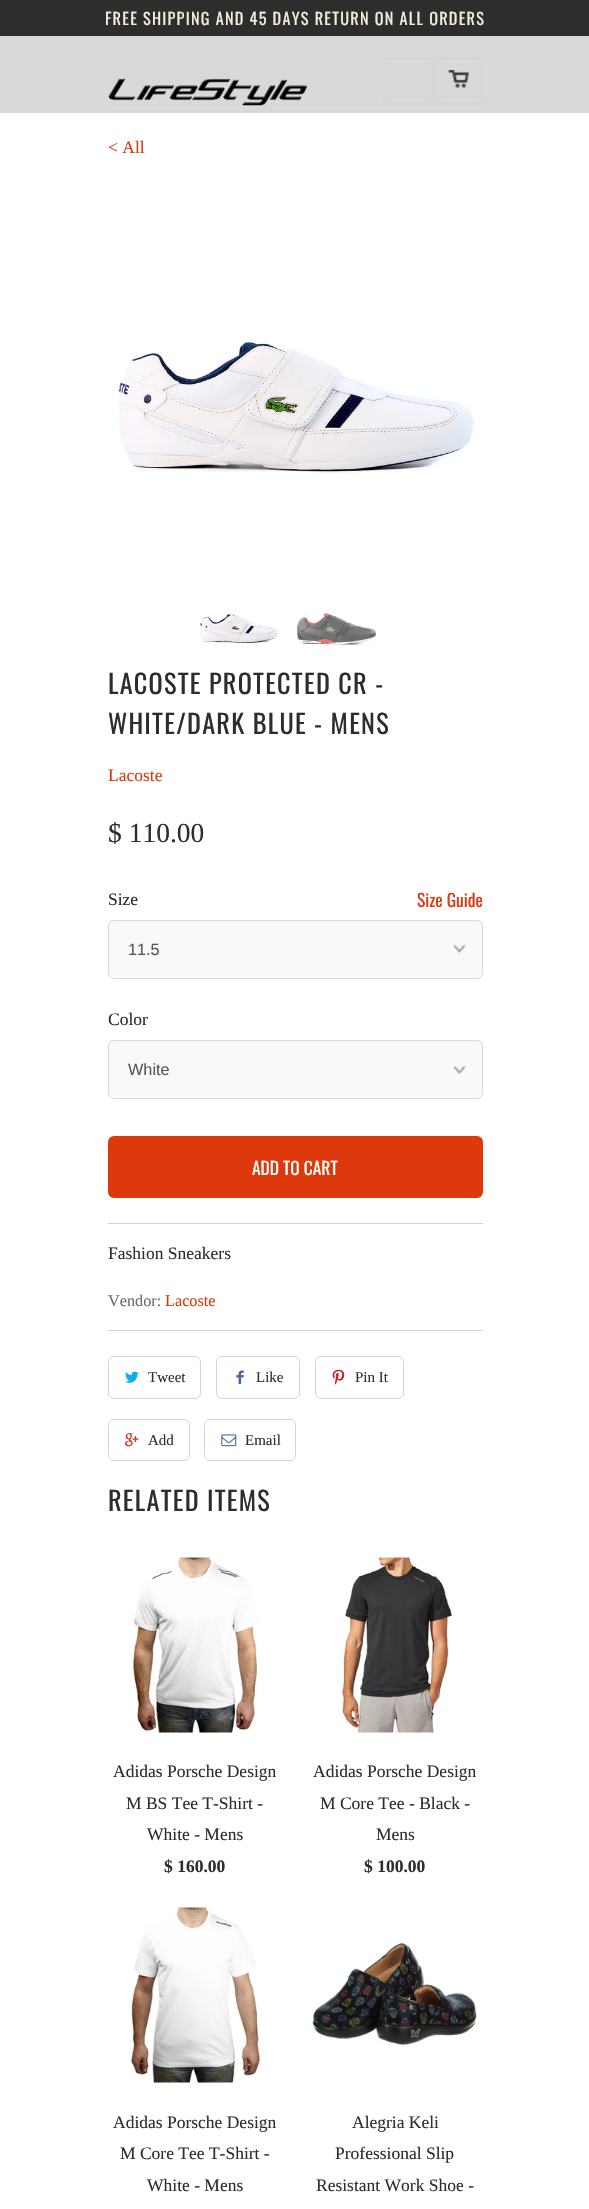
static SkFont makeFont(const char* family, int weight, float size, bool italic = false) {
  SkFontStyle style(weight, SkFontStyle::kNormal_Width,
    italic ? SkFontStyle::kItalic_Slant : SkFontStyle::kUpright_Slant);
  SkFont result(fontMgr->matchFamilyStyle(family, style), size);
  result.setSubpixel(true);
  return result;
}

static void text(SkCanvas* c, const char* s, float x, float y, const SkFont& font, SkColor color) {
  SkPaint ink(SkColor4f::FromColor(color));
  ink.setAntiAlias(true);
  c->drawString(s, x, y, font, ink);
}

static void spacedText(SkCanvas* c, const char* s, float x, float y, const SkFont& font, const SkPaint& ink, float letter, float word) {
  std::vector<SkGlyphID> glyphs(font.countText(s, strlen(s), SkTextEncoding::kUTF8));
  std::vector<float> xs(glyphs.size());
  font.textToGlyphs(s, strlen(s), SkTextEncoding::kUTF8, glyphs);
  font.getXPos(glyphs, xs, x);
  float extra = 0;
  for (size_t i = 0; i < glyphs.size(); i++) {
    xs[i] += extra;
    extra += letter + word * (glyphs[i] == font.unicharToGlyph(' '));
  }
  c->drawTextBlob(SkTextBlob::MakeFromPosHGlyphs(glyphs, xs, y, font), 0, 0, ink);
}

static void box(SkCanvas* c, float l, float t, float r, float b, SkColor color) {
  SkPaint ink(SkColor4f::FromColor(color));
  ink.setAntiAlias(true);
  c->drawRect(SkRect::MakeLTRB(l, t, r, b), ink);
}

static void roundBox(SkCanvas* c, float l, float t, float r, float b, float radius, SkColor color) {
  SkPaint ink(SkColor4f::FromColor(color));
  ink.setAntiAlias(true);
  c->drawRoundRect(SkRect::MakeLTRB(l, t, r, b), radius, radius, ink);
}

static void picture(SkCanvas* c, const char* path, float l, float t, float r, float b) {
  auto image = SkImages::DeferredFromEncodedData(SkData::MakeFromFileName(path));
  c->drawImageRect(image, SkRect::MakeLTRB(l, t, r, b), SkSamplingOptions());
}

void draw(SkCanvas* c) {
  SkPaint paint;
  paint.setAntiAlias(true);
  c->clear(0xffffffff);
  box(c, 0, 0, 589, 36, 0xff2e2d2c);
  SkFont face1 = makeFont("Oswald", 400, 16.25f);
  paint.setColor(0xfff2ede3);
  spacedText(c, "FREE SHIPPING AND 45 DAYS RETURN ON ALL ORDERS", 105, 25, face1, paint, 1.25f, 0);
  box(c, 0, 36, 589, 113, 0xffd9d9d9);
  box(c, 108, 111, 483, 112, 0xffd7d4d3);
  picture(c, "img_01.png", 108, 78, 308, 106);
  paint.setStyle(SkPaint::kStroke_Style);
  paint.setStrokeWidth(1);
  paint.setColor(0xffd7d4d3);
  c->drawRoundRect(SkRect::MakeLTRB(383.5f, 58.5f, 432.5f, 103.5f), 5.5f, 5.5f, paint);
  picture(c, "img_02.png", 448, 70, 469, 88);
  c->drawRoundRect(SkRect::MakeLTRB(436.5f, 58.5f, 482.5f, 103.5f), 5.5f, 5.5f, paint);
  SkFont face2 = makeFont("Liberation Serif", 400, 17.5f);
  text(c, "< All", 108, 153, face2, 0xffdd390d);
  picture(c, "img_03.png", 117, 341, 475, 474);
  picture(c, "img_04.png", 199, 614, 278, 644);
  picture(c, "img_05.png", 296, 613, 377, 645);
  SkFont face3 = makeFont("Oswald", 400, 26.25f);
  paint.setStyle(SkPaint::kFill_Style);
  paint.setColor(0xff2e2d2c);
  spacedText(c, "LACOSTE PROTECTED CR -", 108, 694, face3, paint, 1.25f, 0);
  spacedText(c, "WHITE/DARK BLUE - MENS", 108, 734, face3, paint, 1.25f, 0);
  text(c, "Lacoste", 108, 781, face2, 0xffdd390d);
  SkFont face4 = makeFont("Liberation Serif", 400, 27.5f);
  text(c, "$ 110.00", 108, 842, face4, 0xff2e2d2c);
  text(c, "Size", 108, 905, face2, 0xff2e2d2c);
  roundBox(c, 108, 920, 483, 979, 6, 0xfff9f9f9);
  picture(c, "img_06.png", 453, 944, 466, 953);
  paint.setStyle(SkPaint::kStroke_Style);
  paint.setColor(0xffd7dcde);
  c->drawRoundRect(SkRect::MakeLTRB(108.5f, 920.5f, 482.5f, 978.5f), 5.5f, 5.5f, paint);
  SkFont face5 = makeFont("Liberation Sans", 400, 16.25f);
  text(c, "11.5", 128, 955, face5, 0xff51595d);
  text(c, "Color", 108, 1025, face2, 0xff2e2d2c);
  roundBox(c, 108, 1040, 483, 1099, 6, 0xfff9f9f9);
  picture(c, "img_07.png", 453, 1066, 466, 1074);
  c->drawRoundRect(SkRect::MakeLTRB(108.5f, 1040.5f, 482.5f, 1098.5f), 5.5f, 5.5f, paint);
  text(c, "White", 128, 1075, face5, 0xff51595d);
  roundBox(c, 108, 1136, 483, 1198, 6, 0xffdd390d);
  SkFont face6 = makeFont("Oswald", 400, 17.5f);
  text(c, "ADD TO CART", 252, 1175, face6, 0xffffffff);
  text(c, "Size Guide", 417, 907, face6, 0xffdd390d);
  box(c, 108, 1223, 483, 1224, 0xffd7d4d3);
  text(c, "Fashion Sneakers", 108, 1259, face2, 0xff2e2d2c);
  SkFont face7 = makeFont("Liberation Serif", 400, 16.25f);
  text(c, "Vendor:", 108, 1306, face7, 0xff6e6c6a);
  text(c, "Lacoste", 165, 1306, face7, 0xffdd390d);
  box(c, 108, 1330, 483, 1331, 0xffd7d4d3);
  paint.setColor(0xffd7d4d3);
  c->drawRoundRect(SkRect::MakeLTRB(108.5f, 1356.5f, 200.5f, 1398.5f), 5.5f, 5.5f, paint);
  picture(c, "img_08.png", 125, 1371, 139, 1383);
  SkFont face8 = makeFont("Liberation Serif", 400, 15);
  text(c, "Tweet", 148, 1382, face8, 0xff2e2d2c);
  c->drawRoundRect(SkRect::MakeLTRB(216.5f, 1356.5f, 299.5f, 1398.5f), 5.5f, 5.5f, paint);
  picture(c, "img_09.png", 236, 1370, 244, 1384);
  text(c, "Like", 256, 1382, face8, 0xff2e2d2c);
  c->drawRoundRect(SkRect::MakeLTRB(315.5f, 1356.5f, 403.5f, 1398.5f), 5.5f, 5.5f, paint);
  picture(c, "img_10.png", 332, 1369, 345, 1385);
  text(c, "Pin It", 355, 1382, face8, 0xff2e2d2c);
  c->drawRoundRect(SkRect::MakeLTRB(108.5f, 1419.5f, 189.5f, 1460.5f), 5.5f, 5.5f, paint);
  picture(c, "img_11.png", 125, 1433, 139, 1447);
  text(c, "Add", 148, 1445, face8, 0xff2e2d2c);
  c->drawRoundRect(SkRect::MakeLTRB(204.5f, 1419.5f, 295.5f, 1460.5f), 5.5f, 5.5f, paint);
  picture(c, "img_12.png", 221, 1434, 237, 1447);
  text(c, "Email", 245, 1445, face8, 0xff2e2d2c);
  paint.setStyle(SkPaint::kFill_Style);
  paint.setColor(0xff2e2d2c);
  spacedText(c, "RELATED ITEMS", 108, 1511, face3, paint, 1.25f, 0);
  picture(c, "img_13.png", 132, 1557, 259, 1733);
  text(c, "Adidas Porsche Design", 113, 1777, face2, 0xff2e2d2c);
  text(c, "M BS Tee T-Shirt -", 126, 1809, face2, 0xff2e2d2c);
  text(c, "White - Mens", 147, 1840, face2, 0xff2e2d2c);
  SkFont face9 = makeFont("Liberation Serif", 700, 17.5f);
  text(c, "$ 160.00", 164, 1872, face9, 0xff2e2d2c);
  picture(c, "img_14.png", 341, 1557, 452, 1733);
  text(c, "Adidas Porsche Design", 313, 1777, face2, 0xff2e2d2c);
  text(c, "M Core Tee - Black -", 320, 1809, face2, 0xff2e2d2c);
  text(c, "Mens", 376, 1840, face2, 0xff2e2d2c);
  text(c, "$ 100.00", 364, 1872, face9, 0xff2e2d2c);
  picture(c, "img_15.png", 131, 1907, 260, 2083);
  text(c, "Adidas Porsche Design", 113, 2128, face2, 0xff2e2d2c);
  text(c, "M Core Tee T-Shirt -", 120, 2159, face2, 0xff2e2d2c);
  text(c, "White - Mens", 147, 2191, face2, 0xff2e2d2c);
  picture(c, "img_16.png", 312, 1942, 477, 2046);
  text(c, "Alegria Keli", 352, 2128, face2, 0xff2e2d2c);
  text(c, "Professional Slip", 335, 2159, face2, 0xff2e2d2c);
  text(c, "Resistant Work Shoe -", 316, 2191, face2, 0xff2e2d2c);
}
